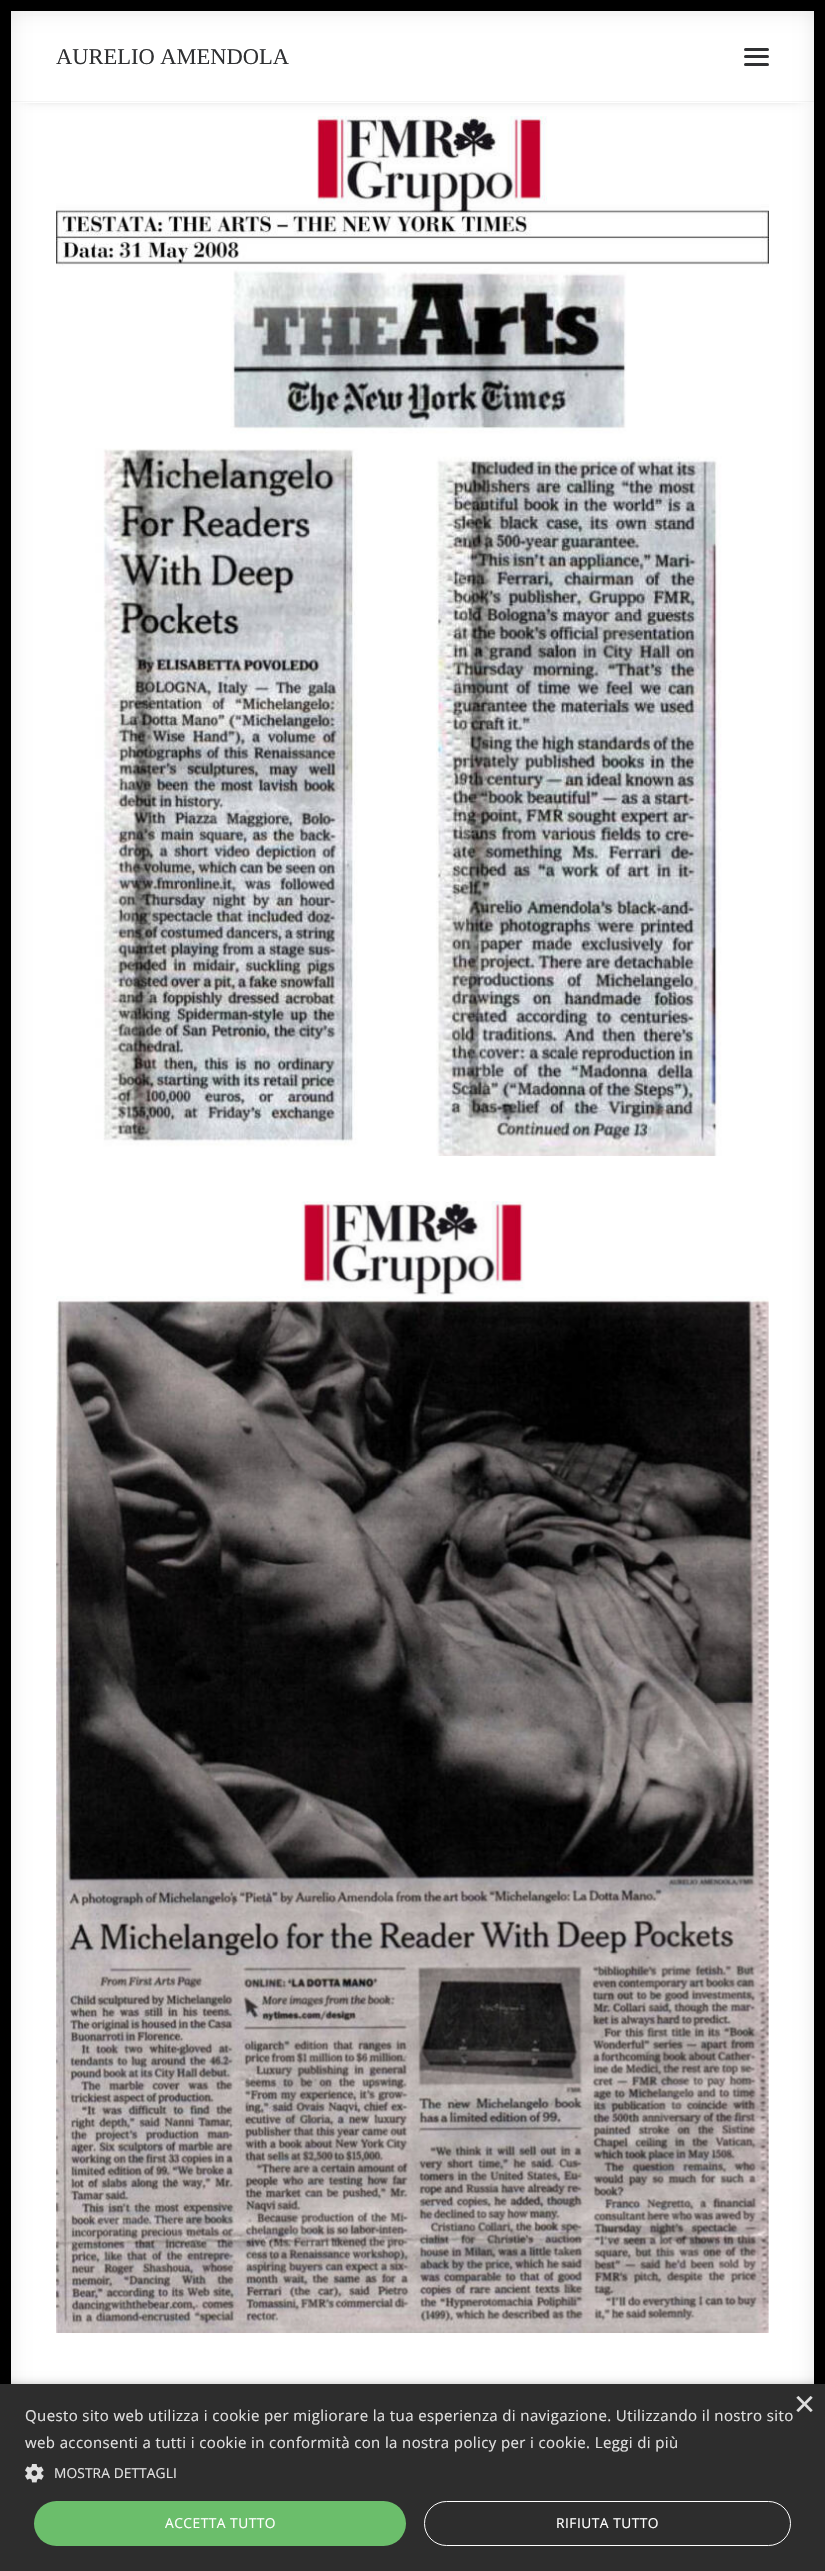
static SkFont makeFont(const char* family, int weight, float size, bool italic = false) {
  SkFontStyle style(weight, SkFontStyle::kNormal_Width,
    italic ? SkFontStyle::kItalic_Slant : SkFontStyle::kUpright_Slant);
  SkFont result(fontMgr->matchFamilyStyle(family, style), size);
  result.setSubpixel(true);
  return result;
}

static void text(SkCanvas* c, const char* s, float x, float y, const SkFont& font, SkColor color) {
  SkPaint ink(SkColor4f::FromColor(color));
  ink.setAntiAlias(true);
  c->drawString(s, x, y, font, ink);
}

static void spacedText(SkCanvas* c, const char* s, float x, float y, const SkFont& font, const SkPaint& ink, float letter, float word) {
  std::vector<SkGlyphID> glyphs(font.countText(s, strlen(s), SkTextEncoding::kUTF8));
  std::vector<float> xs(glyphs.size());
  font.textToGlyphs(s, strlen(s), SkTextEncoding::kUTF8, glyphs);
  font.getXPos(glyphs, xs, x);
  float extra = 0;
  for (size_t i = 0; i < glyphs.size(); i++) {
    xs[i] += extra;
    extra += letter + word * (glyphs[i] == font.unicharToGlyph(' '));
  }
  c->drawTextBlob(SkTextBlob::MakeFromPosHGlyphs(glyphs, xs, y, font), 0, 0, ink);
}

static void box(SkCanvas* c, float l, float t, float r, float b, SkColor color) {
  SkPaint ink(SkColor4f::FromColor(color));
  ink.setAntiAlias(true);
  c->drawRect(SkRect::MakeLTRB(l, t, r, b), ink);
}

static void roundBox(SkCanvas* c, float l, float t, float r, float b, float radius, SkColor color) {
  SkPaint ink(SkColor4f::FromColor(color));
  ink.setAntiAlias(true);
  c->drawRoundRect(SkRect::MakeLTRB(l, t, r, b), radius, radius, ink);
}

static void picture(SkCanvas* c, const char* path, float l, float t, float r, float b) {
  auto image = SkImages::DeferredFromEncodedData(SkData::MakeFromFileName(path));
  c->drawImageRect(image, SkRect::MakeLTRB(l, t, r, b), SkSamplingOptions());
}

void draw(SkCanvas* c) {
  SkPaint paint;
  paint.setAntiAlias(true);
  c->clear(0xffffffff);
  paint.setColor(0x99000000);
  paint.setMaskFilter(SkMaskFilter::MakeBlur(kNormal_SkBlurStyle, 6));
  c->drawRect(SkRect::MakeLTRB(24, 29, 801, 95), paint);
  paint.setMaskFilter(nullptr);
  box(c, 11, 16, 814, 103, 0xffffffff);
  paint.setColor(0x1a000000);
  paint.setMaskFilter(SkMaskFilter::MakeBlur(kNormal_SkBlurStyle, 9));
  c->drawRect(SkRect::MakeLTRB(0, 0, 825, 11), paint);
  paint.setMaskFilter(nullptr);
  box(c, 11, 101, 814, 102, 0xfff5f5f5);
  paint.setMaskFilter(SkMaskFilter::MakeBlur(kNormal_SkBlurStyle, 9));
  c->drawRect(SkRect::MakeLTRB(0, 0, 11, 2571), paint);
  paint.setMaskFilter(nullptr);
  box(c, 0, 0, 11, 2384, 0xff000000);
  paint.setMaskFilter(SkMaskFilter::MakeBlur(kNormal_SkBlurStyle, 9));
  c->drawRect(SkRect::MakeLTRB(814, 0, 825, 2571), paint);
  paint.setMaskFilter(nullptr);
  box(c, 11, 0, 814, 11, 0xff000000);
  box(c, 814, 0, 825, 2384, 0xff000000);
  SkFont face1 = makeFont("Liberation Serif", 400, 22.5f);
  text(c, "AURELIO AMENDOLA", 56, 64, face1, 0xff303133);
  roundBox(c, 744, 55, 769, 58, 1.5f, 0xff303133);
  roundBox(c, 744, 48, 769, 51, 1.5f, 0xff303133);
  roundBox(c, 744, 63, 769, 66, 1.5f, 0xff303133);
  picture(c, "img_01.png", 56, 116, 769, 1156);
  picture(c, "img_02.png", 56, 1201, 769, 2333);
  paint.setColor(0x59000000);
  paint.setMaskFilter(SkMaskFilter::MakeBlur(kNormal_SkBlurStyle, 5));
  c->drawRect(SkRect::MakeLTRB(1, 2386, 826, 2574), paint);
  paint.setMaskFilter(nullptr);
  box(c, 0, 2384, 825, 2571, 0xff2d2d2d);
  SkFont face2 = makeFont("Liberation Sans", 400, 36);
  text(c, "×", 794, 2416, face2, 0xffe0e0e0);
  SkFont face3 = makeFont("Open Sans", 400, 15);
  paint.setColor(0xffe0e0e0);
  spacedText(c, "Questo sito web utilizza i cookie per migliorare la tua esperienza di navigazione. Utilizzando il nostro sito", 25, 2421, face3, paint, 0.38f, 0);
  spacedText(c, "web acconsenti a tutti i cookie in conformità con la nostra policy per i cookie. Leggi di più", 25, 2448, face3, paint, 0.38f, 0);
  picture(c, "img_03.png", 25, 2464, 44, 2483);
  SkFont face4 = makeFont("Open Sans", 400, 13.75f);
  spacedText(c, "MOSTRA DETTAGLI", 54, 2478, face4, paint, 0.1f, 0);
  roundBox(c, 34, 2501, 406, 2546, 22.5f, 0xff6bbe6b);
  paint.setColor(0xffffffff);
  spacedText(c, "ACCETTA TUTTO", 165, 2528, face4, paint, 0.5f, 0);
  paint.setStyle(SkPaint::kStroke_Style);
  paint.setStrokeWidth(1);
  c->drawRoundRect(SkRect::MakeLTRB(424.5f, 2501.5f, 790.5f, 2545.5f), 22, 22, paint);
  paint.setStyle(SkPaint::kFill_Style);
  spacedText(c, "RIFIUTA TUTTO", 556, 2528, face4, paint, 0.5f, 0);
}
